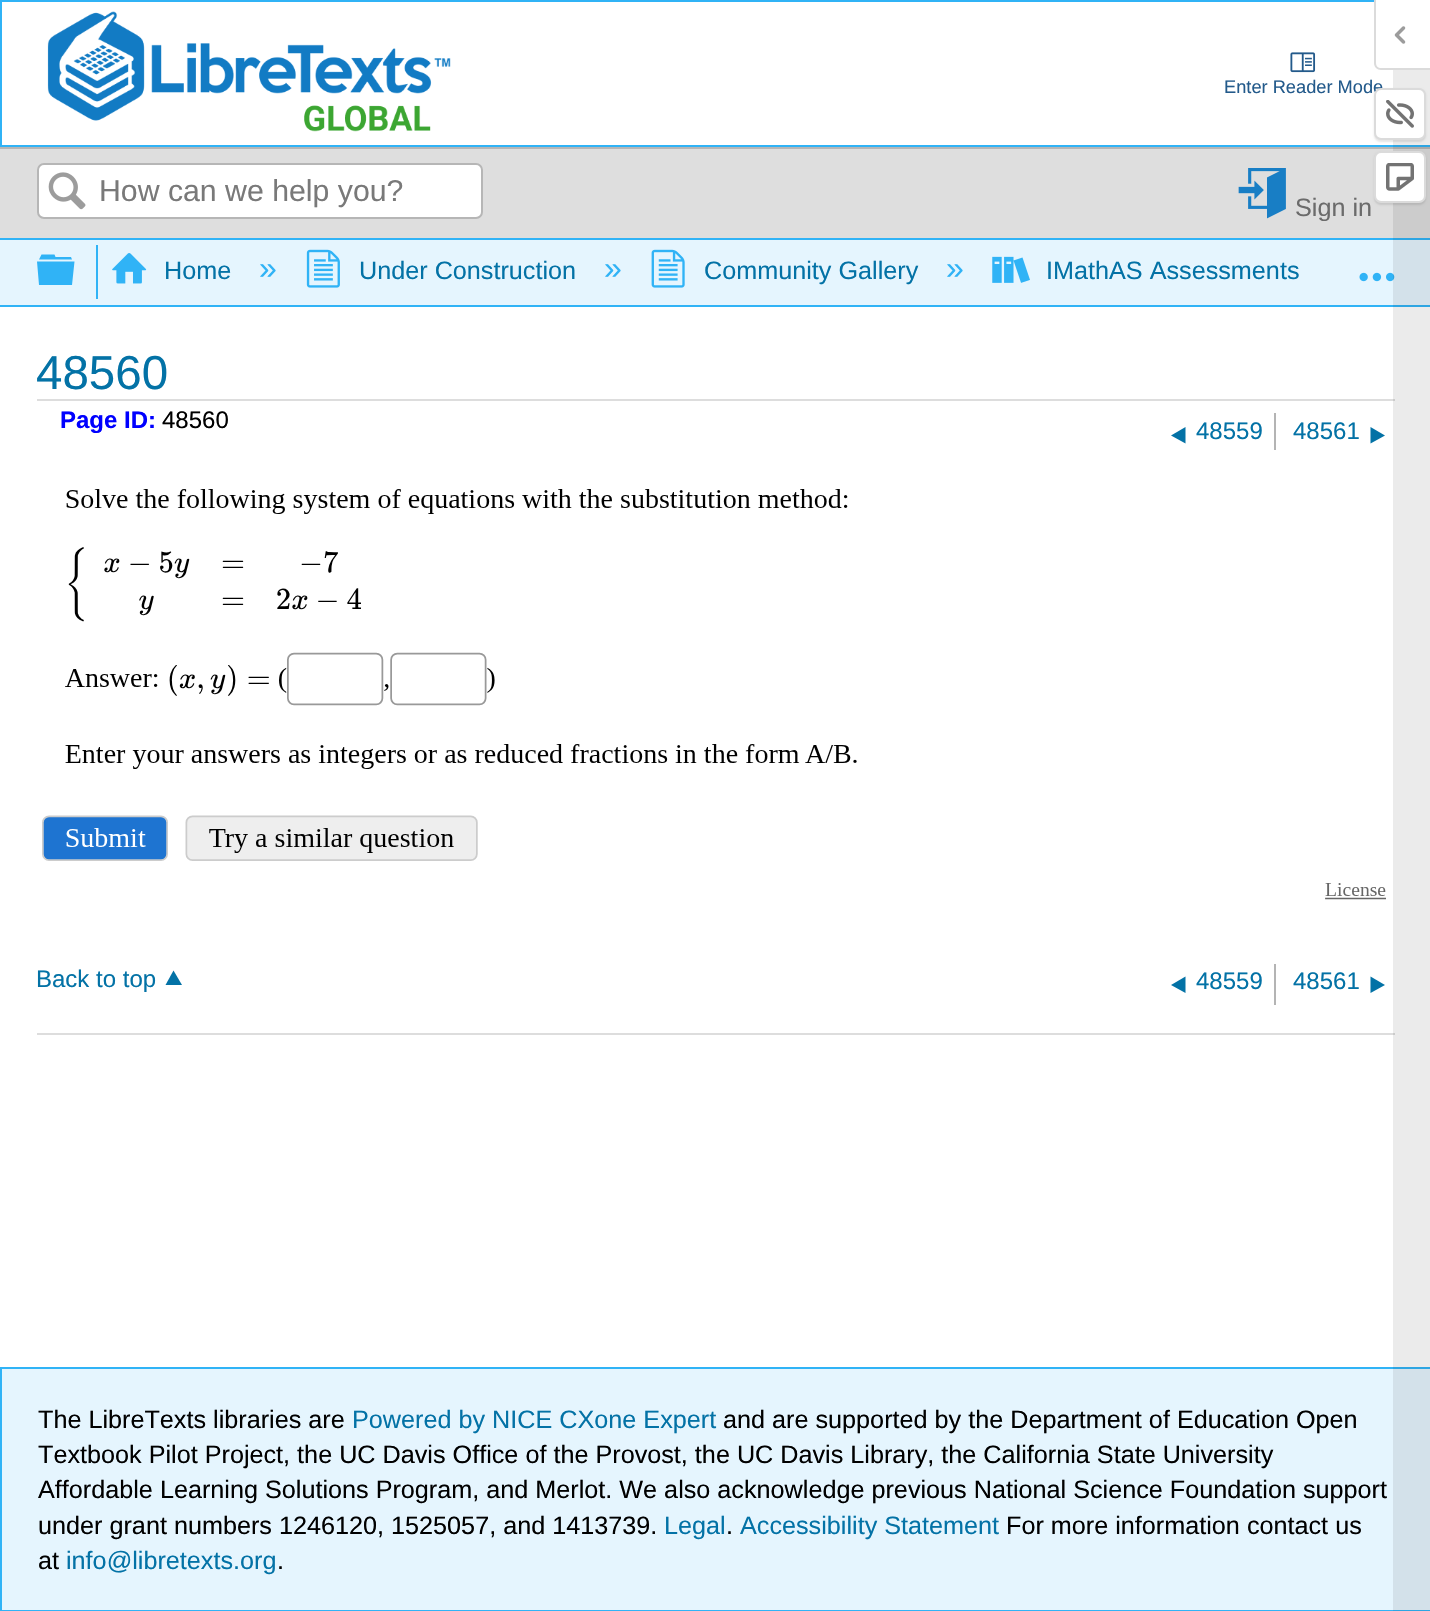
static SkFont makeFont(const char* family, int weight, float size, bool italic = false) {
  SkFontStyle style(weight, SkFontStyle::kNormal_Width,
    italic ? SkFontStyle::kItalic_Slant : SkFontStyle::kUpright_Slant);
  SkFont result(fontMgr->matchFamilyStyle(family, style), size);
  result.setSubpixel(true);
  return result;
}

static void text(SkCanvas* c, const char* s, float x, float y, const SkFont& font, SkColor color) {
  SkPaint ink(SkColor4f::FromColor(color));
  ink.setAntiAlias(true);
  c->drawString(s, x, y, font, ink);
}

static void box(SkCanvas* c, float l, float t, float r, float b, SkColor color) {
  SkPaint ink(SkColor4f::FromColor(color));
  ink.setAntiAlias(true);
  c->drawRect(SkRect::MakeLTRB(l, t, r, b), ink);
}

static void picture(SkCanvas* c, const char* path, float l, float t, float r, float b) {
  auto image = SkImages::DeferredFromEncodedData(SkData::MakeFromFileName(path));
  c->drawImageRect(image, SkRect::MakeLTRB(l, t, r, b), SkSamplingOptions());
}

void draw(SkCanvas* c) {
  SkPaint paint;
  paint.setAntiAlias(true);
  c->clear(0xffffffff);
  paint.setStyle(SkPaint::kStroke_Style);
  paint.setStrokeWidth(2);
  paint.setColor(0xff30b3f6);
  c->drawRect(SkRect::MakeLTRB(1, 1, 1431, 146), paint);
  picture(c, "img_01.png", 47, 11, 451, 132);
  picture(c, "img_02.png", 1290, 52, 1316, 73);
  SkFont face1 = makeFont("Liberation Sans", 400, 18.25f);
  text(c, "Enter Reader Mode", 1224, 93, face1, 0xff235a8b);
  box(c, 0, 149, 1430, 238, 0xffdedede);
  box(c, 0, 147, 1430, 149, 0xffb6b6b6);
  paint.setStyle(SkPaint::kFill_Style);
  paint.setColor(0xffffffff);
  c->drawRoundRect(SkRect::MakeLTRB(38, 164, 482, 218), 6, 6, paint);
  paint.setStyle(SkPaint::kStroke_Style);
  paint.setColor(0xffb6b6b6);
  c->drawRoundRect(SkRect::MakeLTRB(38, 164, 482, 218), 6, 6, paint);
  picture(c, "img_03.png", 48, 172, 86, 210);
  SkFont face2 = makeFont("Liberation Sans", 400, 30.25f);
  text(c, "How can we help you?", 99, 201, face2, 0xff797979);
  picture(c, "img_04.png", 1238, 168, 1286, 219);
  c->save();
  c->clipRect(SkRect::MakeLTRB(1236, 166, 1383, 221));
  SkFont face3 = makeFont("Liberation Sans", 400, 25.2f);
  text(c, "Sign in", 1295, 216, face3, 0xff6b6b6b);
  c->restore();
  box(c, 0, 240, 1430, 305, 0xffe5f5fe);
  box(c, 0, 238, 1430, 240, 0xff30b3f6);
  box(c, 0, 305, 1430, 307, 0xff30b3f6);
  paint.setStyle(SkPaint::kFill_Style);
  paint.setColor(0xff30b3f6);
  c->drawPath(SkPathBuilder().moveTo(37, 261.5f).lineTo(74.5f, 261.5f).lineTo(72, 285).lineTo(39, 285).close().moveTo(71, 257).lineTo(72, 259.5f).lineTo(39, 259.5f).lineTo(41.5f, 254.5f).lineTo(54.5f, 254.5f).lineTo(55.5f, 257).close().detach(), paint);
  box(c, 96, 245, 98, 299, 0xff30b3f6);
  picture(c, "img_05.png", 112, 253, 147, 284);
  text(c, "Home", 164, 279, face3, 0xff0372a6);
  SkFont face4 = makeFont("Liberation Sans", 400, 32);
  text(c, "»", 259, 279, face4, 0xff30b3f6);
  picture(c, "img_06.png", 306, 249, 340, 288);
  text(c, "Under Construction", 359, 279, face3, 0xff0372a6);
  text(c, "»", 604, 279, face4, 0xff30b3f6);
  picture(c, "img_07.png", 651, 249, 685, 288);
  text(c, "Community Gallery", 704, 279, face3, 0xff0372a6);
  text(c, "»", 946, 279, face4, 0xff30b3f6);
  picture(c, "img_08.png", 992, 256, 1030, 283);
  text(c, "IMathAS Assessments", 1046, 279, face3, 0xff0372a6);
  picture(c, "img_09.png", 1359, 272, 1395, 282);
  box(c, 37, 399, 1395, 401, 0xffdddddd);
  SkFont face5 = makeFont("Liberation Sans", 400, 47.5f);
  text(c, "48560", 36, 389, face5, 0xff0372a6);
  SkFont face6 = makeFont("Liberation Sans", 700, 24);
  text(c, "Page ID:", 60, 428, face6, 0xff0000ff);
  SkFont face7 = makeFont("Liberation Sans", 400, 24);
  text(c, "48560", 162, 428, face7, 0xff000000);
  box(c, 1274, 413, 1276, 450, 0xffb4b4b4);
  paint.setColor(0xff0372a6);
  c->drawPath(SkPathBuilder().moveTo(1185.5f, 427).lineTo(1185.5f, 443.5f).lineTo(1171, 435.5f).close().detach(), paint);
  text(c, "48559", 1196, 439, face7, 0xff0372a6);
  text(c, "48561", 1293, 439, face7, 0xff0372a6);
  c->drawPath(SkPathBuilder().moveTo(1370.5f, 427).lineTo(1370.5f, 443.5f).lineTo(1385, 435.5f).close().detach(), paint);
  picture(c, "img_10.png", 42, 489, 1386, 900);
  box(c, 37, 1033, 1395, 1035, 0xffdddddd);
  text(c, "Back to top", 36, 987, face7, 0xff0372a6);
  c->drawPath(SkPathBuilder().moveTo(165.5f, 985).lineTo(182, 985).lineTo(173.5f, 970.5f).close().detach(), paint);
  box(c, 1274, 964, 1276, 1005, 0xffb4b4b4);
  c->drawPath(SkPathBuilder().moveTo(1185.5f, 976.5f).lineTo(1185.5f, 993).lineTo(1171, 985).close().detach(), paint);
  text(c, "48559", 1196, 989, face7, 0xff0372a6);
  text(c, "48561", 1293, 989, face7, 0xff0372a6);
  c->drawPath(SkPathBuilder().moveTo(1370.5f, 976.5f).lineTo(1370.5f, 993).lineTo(1385, 985).close().detach(), paint);
  paint.setColor(0xffe5f5fe);
  c->drawRect(SkRect::MakeLTRB(1, 1368, 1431, 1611), paint);
  paint.setStyle(SkPaint::kStroke_Style);
  paint.setColor(0xff30b3f6);
  c->drawRect(SkRect::MakeLTRB(1, 1368, 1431, 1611), paint);
  text(c, "The LibreTexts libraries are", 38, 1428, face3, 0xff000000);
  text(c, "Powered by NICE CXone Expert", 352, 1428, face3, 0xff0372a6);
  text(c, "and are supported by the Department of Education Open", 723, 1428, face3, 0xff000000);
  text(c, "Textbook Pilot Project, the UC Davis Office of the Provost, the UC Davis Library, the California State University", 38, 1463, face3, 0xff000000);
  text(c, "Affordable Learning Solutions Program, and Merlot. We also acknowledge previous National Science Foundation support", 38, 1498, face3, 0xff000000);
  text(c, "under grant numbers 1246120, 1525057, and 1413739.", 38, 1534, face3, 0xff000000);
  text(c, "Legal", 664, 1534, face3, 0xff0372a6);
  text(c, ".", 726, 1534, face3, 0xff000000);
  text(c, "Accessibility Statement", 740, 1534, face3, 0xff0372a6);
  text(c, "For more information contact us", 1006, 1534, face3, 0xff000000);
  text(c, "at", 38, 1569, face3, 0xff000000);
  text(c, "info@libretexts.org", 66, 1569, face3, 0xff0372a6);
  text(c, ".", 277, 1569, face3, 0xff000000);
  box(c, 1393, 70, 1430, 1611, 0x14000000);
  paint.setStyle(SkPaint::kFill_Style);
  paint.setColor(0xffffffff);
  c->drawPath(SkPathBuilder().moveTo(1376, 0).lineTo(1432, 0).lineTo(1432, 68).lineTo(1381, 68).cubicTo(1378, 68, 1376, 66, 1376, 63).close().detach(), paint);
  paint.setColor(0xffdbdbdb);
  c->drawPath(SkPathBuilder(SkPathFillType::kEvenOdd).moveTo(1374, 0).lineTo(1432, 0).lineTo(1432, 70).lineTo(1381, 70).cubicTo(1377, 70, 1374, 67, 1374, 63).close().moveTo(1376, 0).lineTo(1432, 0).lineTo(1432, 68).lineTo(1381, 68).cubicTo(1378, 68, 1376, 66, 1376, 63).close().detach(), paint);
  picture(c, "img_11.png", 1394, 26, 1406, 44);
  paint.setColor(0x1a000000);
  paint.setMaskFilter(SkMaskFilter::MakeBlur(kNormal_SkBlurStyle, 1));
  c->drawRoundRect(SkRect::MakeLTRB(1374, 89, 1426, 142), 7, 7, paint);
  paint.setMaskFilter(nullptr);
  paint.setColor(0xffffffff);
  c->drawRoundRect(SkRect::MakeLTRB(1375, 89, 1425, 139), 6, 6, paint);
  paint.setStyle(SkPaint::kStroke_Style);
  paint.setColor(0xffdbdbdb);
  c->drawRoundRect(SkRect::MakeLTRB(1375, 89, 1425, 139), 6, 6, paint);
  picture(c, "img_12.png", 1386, 100, 1414, 128);
  paint.setStyle(SkPaint::kFill_Style);
  paint.setColor(0x1a000000);
  paint.setMaskFilter(SkMaskFilter::MakeBlur(kNormal_SkBlurStyle, 1));
  c->drawRoundRect(SkRect::MakeLTRB(1374, 152, 1426, 205), 7, 7, paint);
  paint.setMaskFilter(nullptr);
  paint.setColor(0xffffffff);
  c->drawRoundRect(SkRect::MakeLTRB(1375, 152, 1425, 202), 6, 6, paint);
  paint.setStyle(SkPaint::kStroke_Style);
  paint.setColor(0xffdbdbdb);
  c->drawRoundRect(SkRect::MakeLTRB(1375, 152, 1425, 202), 6, 6, paint);
  picture(c, "img_13.png", 1386, 163, 1414, 191);
}
